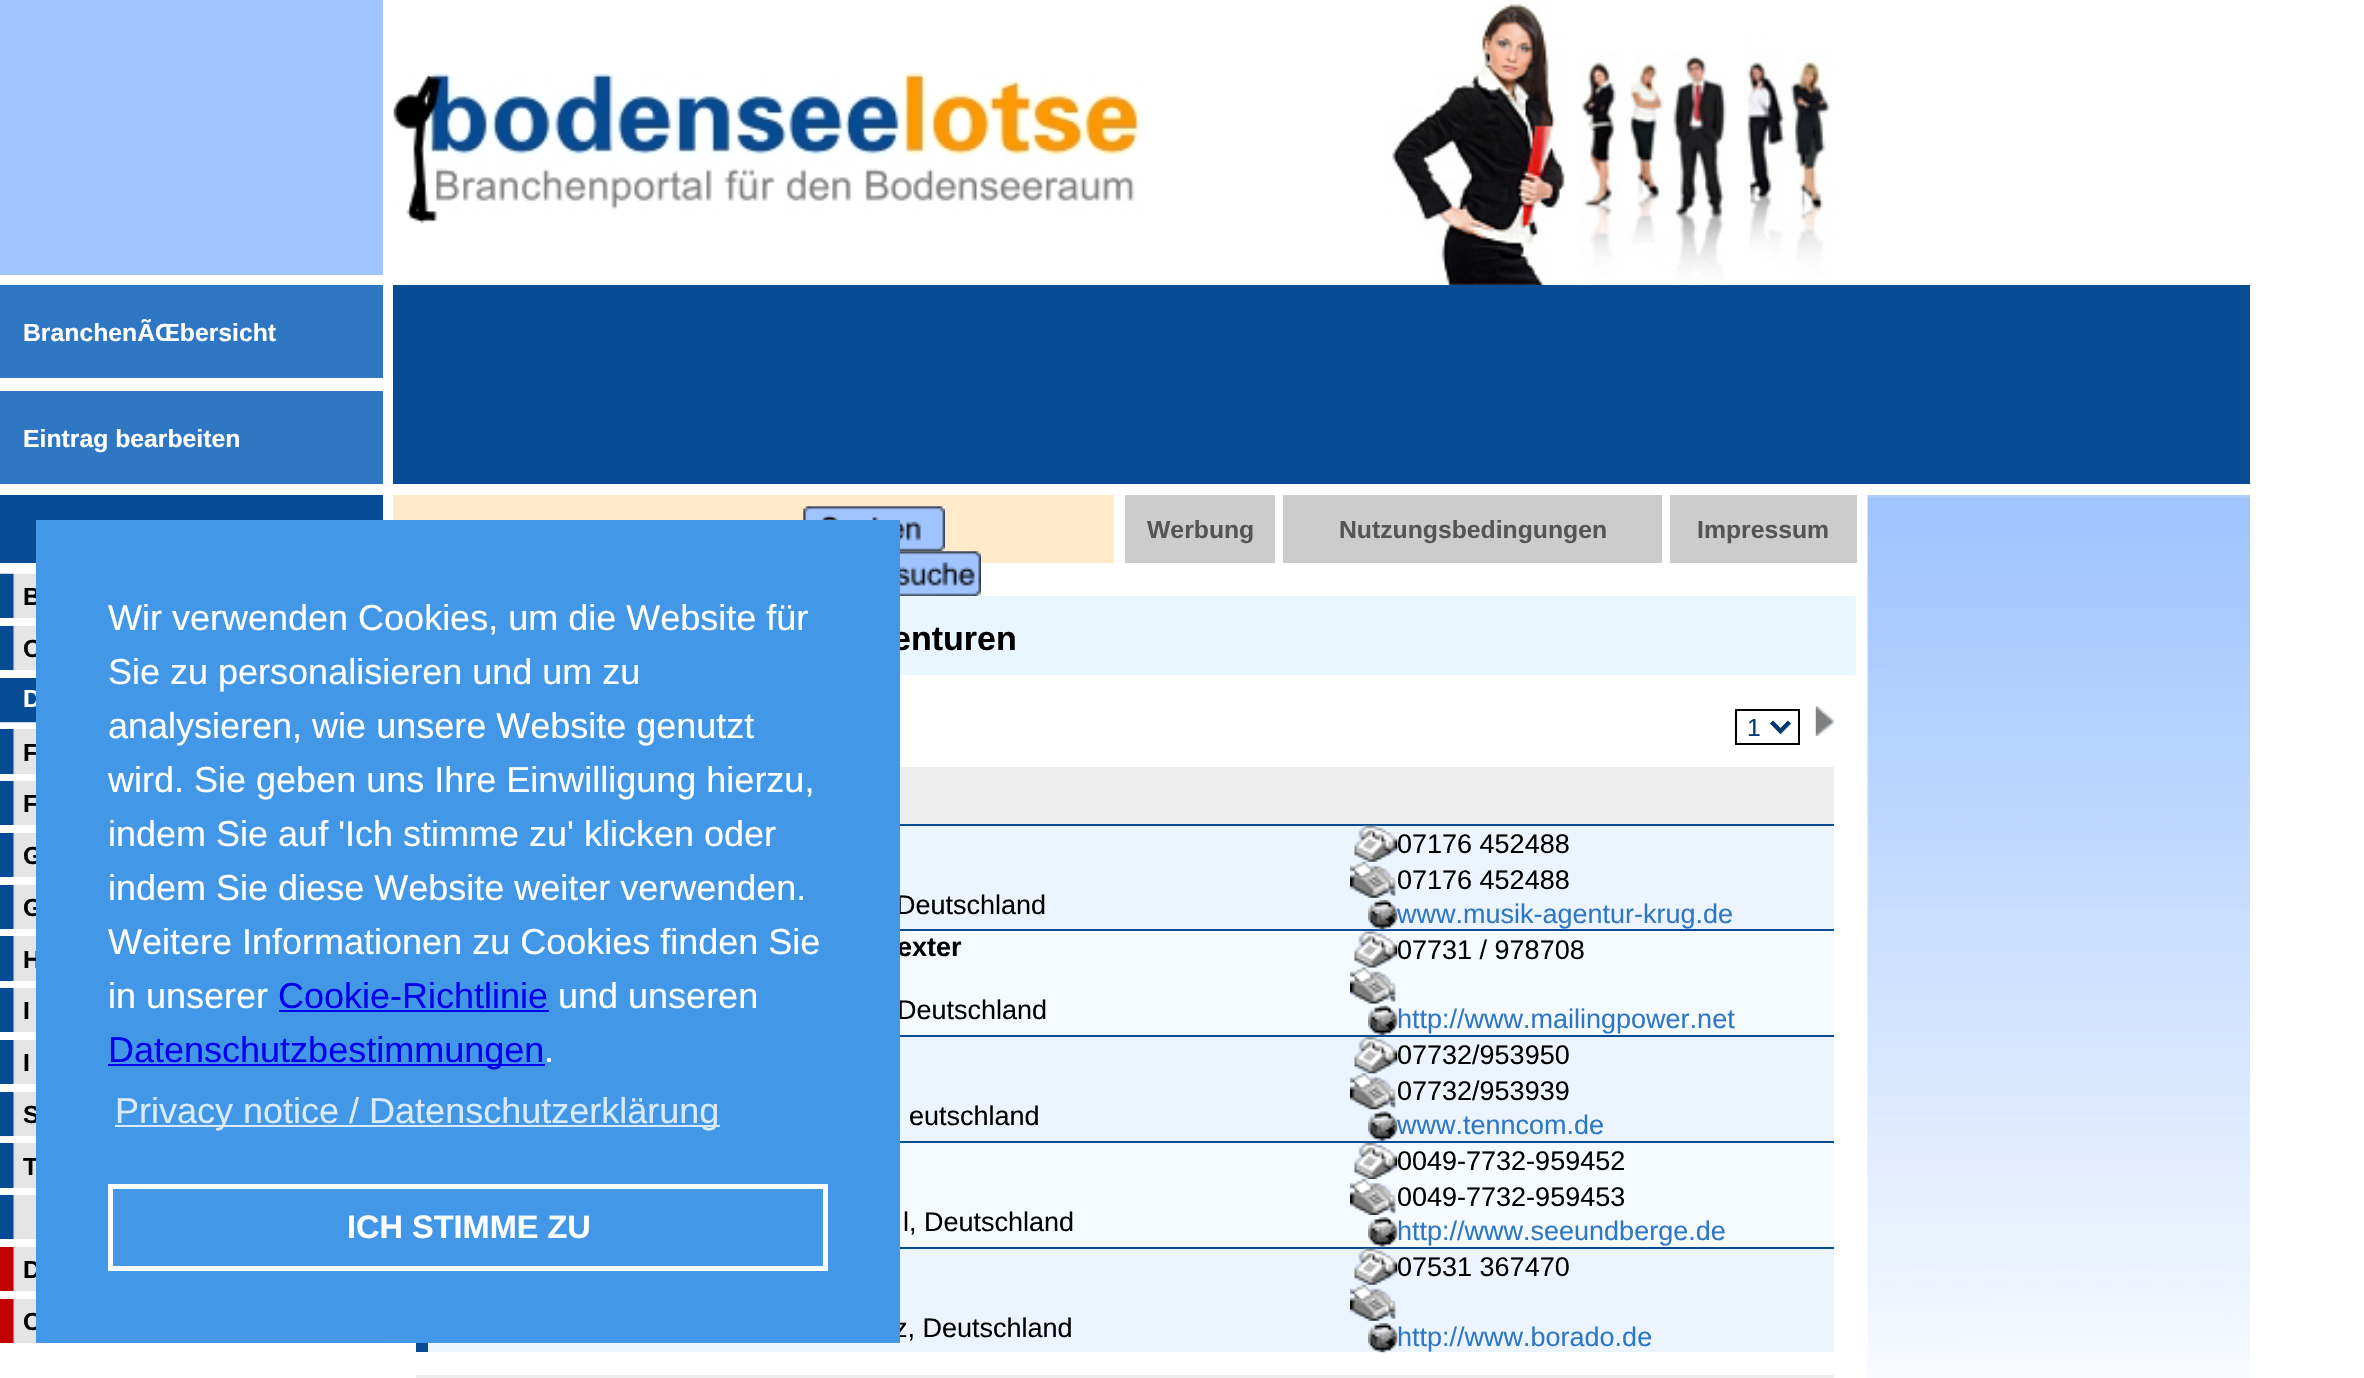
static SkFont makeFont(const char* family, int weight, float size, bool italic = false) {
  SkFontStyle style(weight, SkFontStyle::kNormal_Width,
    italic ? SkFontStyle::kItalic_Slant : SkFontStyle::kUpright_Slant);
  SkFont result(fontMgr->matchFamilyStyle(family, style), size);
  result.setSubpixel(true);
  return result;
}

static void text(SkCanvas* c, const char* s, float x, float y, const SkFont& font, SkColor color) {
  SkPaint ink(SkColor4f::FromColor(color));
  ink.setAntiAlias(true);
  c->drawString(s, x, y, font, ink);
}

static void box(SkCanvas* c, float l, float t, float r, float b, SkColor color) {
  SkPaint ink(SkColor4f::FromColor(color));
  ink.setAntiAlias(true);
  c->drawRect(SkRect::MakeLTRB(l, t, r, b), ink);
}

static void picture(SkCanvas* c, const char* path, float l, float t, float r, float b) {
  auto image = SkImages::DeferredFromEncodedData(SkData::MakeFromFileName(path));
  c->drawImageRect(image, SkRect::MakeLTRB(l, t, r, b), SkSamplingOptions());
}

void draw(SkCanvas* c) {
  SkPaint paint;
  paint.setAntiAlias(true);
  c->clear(0xffffffff);
  box(c, 0, 0, 383, 275, 0xffa0c4ff);
  picture(c, "img_01.png", 393, 71, 1141, 224);
  picture(c, "img_02.png", 1384, 0, 1833, 285);
  box(c, 0, 285, 383, 378, 0xff2f77c3);
  SkFont face1 = makeFont("Liberation Sans", 700, 24.75f);
  text(c, "BranchenÃŒbersicht", 23, 341, face1, 0xffffffff);
  box(c, 0, 391, 383, 484, 0xff2f77c3);
  text(c, "Eintrag bearbeiten", 23, 447, face1, 0xffffffff);
  box(c, 393, 285, 2250, 484, 0xff074b94);
  box(c, 0, 495, 383, 563, 0xff074b94);
  box(c, 393, 495, 1114, 563, 0xffffebca);
  box(c, 803, 506, 945, 551, 0xfffefefe);
  picture(c, "img_03.png", 803, 506, 945, 552);
  picture(c, "img_04.png", 900, 551, 981, 596);
  box(c, 1125, 495, 1857, 563, 0xffcccccc);
  text(c, "Werbung", 1147, 538, face1, 0xff555555);
  box(c, 1275, 495, 1283, 563, 0xffffffff);
  text(c, "Nutzungsbedingungen", 1339, 538, face1, 0xff555555);
  box(c, 1662, 495, 1670, 563, 0xffffffff);
  text(c, "Impressum", 1697, 538, face1, 0xff555555);
  picture(c, "img_05.png", 0, 573, 36, 618);
  text(c, "B", 23, 605, face1, 0xff000000);
  picture(c, "img_06.png", 0, 626, 36, 670);
  text(c, "C", 23, 657, face1, 0xff000000);
  box(c, 0, 678, 36, 723, 0xff074b94);
  text(c, "D", 23, 707, face1, 0xffffffff);
  picture(c, "img_07.png", 0, 722, 36, 723);
  picture(c, "img_08.png", 0, 729, 36, 774);
  text(c, "F", 23, 761, face1, 0xff000000);
  picture(c, "img_05.png", 0, 780, 36, 825);
  box(c, 0, 780, 36, 781, 0xbfffffff);
  text(c, "F", 23, 812, face1, 0xff000000);
  picture(c, "img_06.png", 0, 833, 36, 877);
  text(c, "G", 23, 864, face1, 0xff000000);
  picture(c, "img_09.png", 0, 885, 36, 930);
  text(c, "G", 23, 916, face1, 0xff000000);
  box(c, 0, 929, 36, 930, 0xbfffffff);
  picture(c, "img_08.png", 0, 936, 36, 981);
  text(c, "H", 23, 968, face1, 0xff000000);
  picture(c, "img_05.png", 0, 987, 36, 1032);
  box(c, 0, 987, 36, 988, 0xbfffffff);
  text(c, "I", 23, 1019, face1, 0xff000000);
  picture(c, "img_06.png", 0, 1040, 36, 1084);
  text(c, "I", 23, 1071, face1, 0xff000000);
  picture(c, "img_09.png", 0, 1092, 36, 1137);
  text(c, "S", 23, 1123, face1, 0xff000000);
  box(c, 0, 1136, 36, 1137, 0xbfffffff);
  picture(c, "img_08.png", 0, 1143, 36, 1188);
  text(c, "T", 23, 1175, face1, 0xff000000);
  picture(c, "img_05.png", 0, 1194, 36, 1239);
  box(c, 0, 1194, 36, 1195, 0xbfffffff);
  picture(c, "img_10.png", 0, 1247, 36, 1291);
  text(c, "D", 23, 1278, face1, 0xff000000);
  picture(c, "img_11.png", 0, 1299, 383, 1344);
  text(c, "C", 23, 1330, face1, 0xff000000);
  box(c, 0, 1343, 382, 1344, 0xbfffffff);
  box(c, 900, 596, 1856, 675, 0xffe8f6ff);
  SkFont face2 = makeFont("Liberation Sans", 700, 34);
  text(c, "enturen", 892, 650, face2, 0xff000000);
  box(c, 900, 826, 1834, 929, 0xffecf5ff);
  SkFont face3 = makeFont("Liberation Sans", 400, 27);
  text(c, "Deutschland", 896, 914, face3, 0xff000000);
  box(c, 900, 932, 1834, 1035, 0xfff5faff);
  SkFont face4 = makeFont("Liberation Sans", 700, 27);
  text(c, "exter", 897, 956, face4, 0xff000000);
  text(c, "Deutschland", 897, 1019, face3, 0xff000000);
  box(c, 428, 1249, 1834, 1352, 0xffecf5ff);
  text(c, "z, Deutschland", 894, 1337, face3, 0xff000000);
  box(c, 36, 520, 900, 1343, 0xff4298e6);
  SkFont face5 = makeFont("Liberation Sans", 400, 36);
  text(c, "Wir verwenden Cookies, um die Website für", 108, 630, face5, 0xffffffff);
  text(c, "Sie zu personalisieren und um zu", 108, 684, face5, 0xffffffff);
  text(c, "analysieren, wie unsere Website genutzt", 108, 738, face5, 0xffffffff);
  text(c, "wird. Sie geben uns Ihre Einwilligung hierzu,", 108, 792, face5, 0xffffffff);
  text(c, "indem Sie auf 'Ich stimme zu' klicken oder", 108, 846, face5, 0xffffffff);
  text(c, "indem Sie diese Website weiter verwenden.", 108, 900, face5, 0xffffffff);
  text(c, "Weitere Informationen zu Cookies finden Sie", 108, 954, face5, 0xffffffff);
  text(c, "in unserer", 108, 1008, face5, 0xffffffff);
  text(c, "Cookie-Richtlinie", 278, 1008, face5, 0xff0000ee);
  box(c, 279, 1010, 549, 1012, 0xff0000ee);
  text(c, "und unseren", 558, 1008, face5, 0xffffffff);
  box(c, 108, 1064, 545, 1066, 0xff0000ee);
  text(c, "Datenschutzbestimmungen", 108, 1062, face5, 0xff0000ee);
  text(c, ".", 544, 1062, face5, 0xffffffff);
  box(c, 115, 1125, 720, 1127, 0xffd9eafa);
  text(c, "Privacy notice / Datenschutzerklärung", 115, 1123, face5, 0xffd9eafa);
  paint.setStyle(SkPaint::kStroke_Style);
  paint.setStrokeWidth(5);
  paint.setColor(0xffffffff);
  c->drawRect(SkRect::MakeLTRB(110.5f, 1186.5f, 825.5f, 1268.5f), paint);
  SkFont face6 = makeFont("Liberation Sans", 700, 32.5f);
  text(c, "ICH STIMME ZU", 347, 1238, face6, 0xffffffff);
  paint.setStrokeWidth(2);
  paint.setColor(0xff000000);
  c->drawRect(SkRect::MakeLTRB(1736, 710, 1799, 744), paint);
  paint.setStrokeWidth(4.5f);
  paint.setColor(0xff033972);
  c->drawPath(SkPathBuilder().moveTo(1771.5f, 722).lineTo(1780.5f, 731).lineTo(1789.5f, 722).detach(), paint);
  SkFont face7 = makeFont("Liberation Sans", 400, 24.75f);
  text(c, "1", 1747, 736, face7, 0xff033972);
  picture(c, "img_12.png", 1815, 706, 1834, 736);
  box(c, 900, 767, 1834, 824, 0xffeeeeee);
  box(c, 900, 824, 1834, 826, 0xff074b94);
  picture(c, "img_13.png", 1354, 825, 1398, 862);
  text(c, "07176 452488", 1397, 853, face3, 0xff000000);
  picture(c, "img_14.png", 1350, 861, 1396, 898);
  text(c, "07176 452488", 1397, 889, face3, 0xff000000);
  box(c, 900, 929, 1834, 931, 0xff074b94);
  picture(c, "img_15.png", 1368, 900, 1398, 930);
  text(c, "www.musik-agentur-krug.de", 1397, 923, face3, 0xff2f77c3);
  picture(c, "img_16.png", 1354, 931, 1398, 968);
  text(c, "07731 / 978708", 1397, 959, face3, 0xff000000);
  picture(c, "img_17.png", 1350, 967, 1396, 1004);
  picture(c, "img_18.png", 1368, 1005, 1398, 1035);
  text(c, "http://www.mailingpower.net", 1397, 1028, face3, 0xff2f77c3);
  box(c, 900, 1037, 1834, 1141, 0xffecf5ff);
  box(c, 900, 1035, 1834, 1037, 0xff074b94);
  text(c, "eutschland", 909, 1125, face3, 0xff000000);
  picture(c, "img_19.png", 1354, 1037, 1398, 1074);
  text(c, "07732/953950", 1397, 1064, face3, 0xff000000);
  picture(c, "img_20.png", 1350, 1073, 1396, 1110);
  text(c, "07732/953939", 1397, 1100, face3, 0xff000000);
  picture(c, "img_21.png", 1368, 1111, 1398, 1141);
  text(c, "www.tenncom.de", 1397, 1134, face3, 0xff2f77c3);
  box(c, 900, 1143, 1834, 1247, 0xfff5faff);
  box(c, 900, 1141, 1834, 1143, 0xff074b94);
  text(c, "l, Deutschland", 903, 1231, face3, 0xff000000);
  picture(c, "img_22.png", 1354, 1143, 1398, 1179);
  text(c, "0049-7732-959452", 1397, 1170, face3, 0xff000000);
  picture(c, "img_23.png", 1350, 1179, 1396, 1215);
  text(c, "0049-7732-959453", 1397, 1206, face3, 0xff000000);
  picture(c, "img_24.png", 1368, 1217, 1398, 1247);
  text(c, "http://www.seeundberge.de", 1397, 1240, face3, 0xff2f77c3);
  box(c, 416, 1343, 428, 1352, 0xff074b94);
  box(c, 900, 1247, 1834, 1249, 0xff074b94);
  picture(c, "img_25.png", 1354, 1248, 1398, 1285);
  text(c, "07531 367470", 1397, 1276, face3, 0xff000000);
  picture(c, "img_26.png", 1350, 1284, 1396, 1321);
  picture(c, "img_27.png", 1368, 1323, 1398, 1353);
  text(c, "http://www.borado.de", 1397, 1346, face3, 0xff2f77c3);
  box(c, 416, 1375, 1834, 1378, 0xffeeeeee);
  picture(c, "img_28.png", 1867, 495, 2250, 1378);
}
